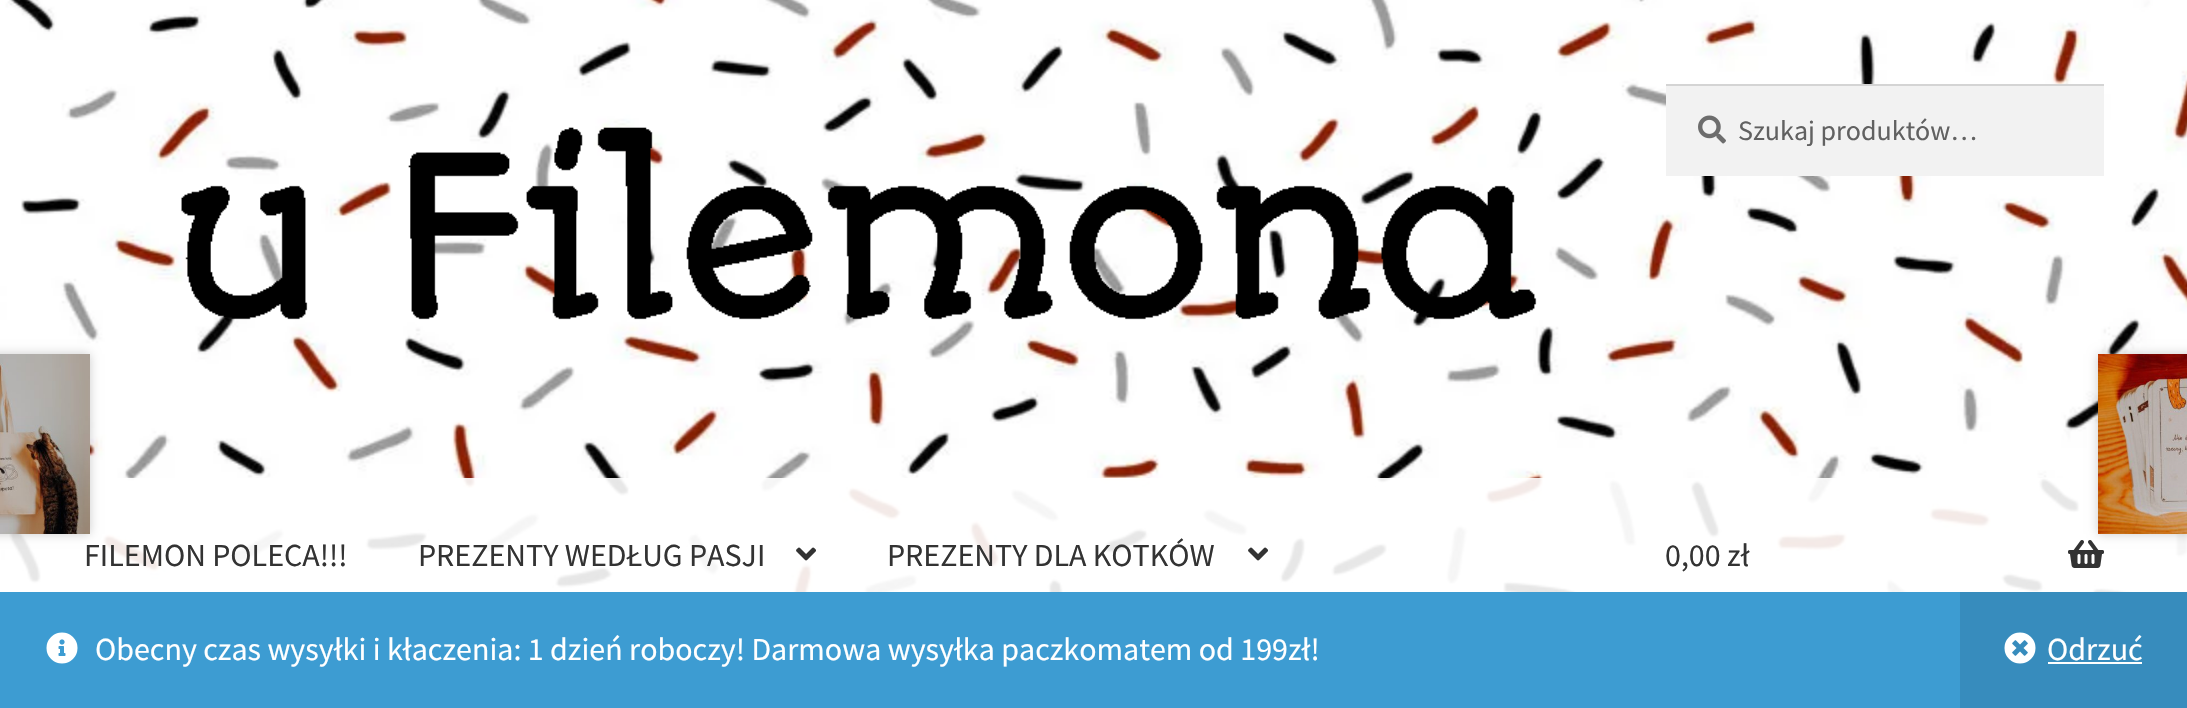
static SkFont makeFont(const char* family, int weight, float size, bool italic = false) {
  SkFontStyle style(weight, SkFontStyle::kNormal_Width,
    italic ? SkFontStyle::kItalic_Slant : SkFontStyle::kUpright_Slant);
  SkFont result(fontMgr->matchFamilyStyle(family, style), size);
  result.setSubpixel(true);
  return result;
}

static void text(SkCanvas* c, const char* s, float x, float y, const SkFont& font, SkColor color) {
  SkPaint ink(SkColor4f::FromColor(color));
  ink.setAntiAlias(true);
  c->drawString(s, x, y, font, ink);
}

static void box(SkCanvas* c, float l, float t, float r, float b, SkColor color) {
  SkPaint ink(SkColor4f::FromColor(color));
  ink.setAntiAlias(true);
  c->drawRect(SkRect::MakeLTRB(l, t, r, b), ink);
}

static void picture(SkCanvas* c, const char* path, float l, float t, float r, float b) {
  auto image = SkImages::DeferredFromEncodedData(SkData::MakeFromFileName(path));
  c->drawImageRect(image, SkRect::MakeLTRB(l, t, r, b), SkSamplingOptions());
}

void draw(SkCanvas* c) {
  SkPaint paint;
  paint.setAntiAlias(true);
  c->clear(0xffffffff);
  picture(c, "img_01.png", 0, 0, 2187, 592);
  picture(c, "img_02.png", 181, 127, 1537, 320);
  box(c, 1666, 86, 2104, 176, 0xfff2f2f2);
  picture(c, "img_03.png", 1698, 115, 1726, 144);
  box(c, 1666, 84, 2104, 86, 0xffd4d4d4);
  SkFont face1 = makeFont("Source Sans Pro", 400, 28);
  text(c, "Szukaj produktów…", 1738, 140, face1, 0xff616161);
  box(c, 5, 478, 2187, 592, 0xe6ffffff);
  SkFont face2 = makeFont("Source Sans Pro", 400, 32);
  text(c, "FILEMON POLECA!!!", 84, 566, face2, 0xff333333);
  text(c, "PREZENTY WEDŁUG PASJI", 418, 566, face2, 0xff333333);
  picture(c, "img_04.png", 796, 547, 816, 561);
  text(c, "PREZENTY DLA KOTKÓW", 887, 566, face2, 0xff333333);
  picture(c, "img_05.png", 1248, 547, 1268, 561);
  text(c, "0,00 zł", 1665, 566, face2, 0xff333333);
  picture(c, "img_06.png", 2068, 540, 2104, 568);
  paint.setColor(0x33000000);
  paint.setMaskFilter(SkMaskFilter::MakeBlur(kNormal_SkBlurStyle, 5));
  c->drawRect(SkRect::MakeLTRB(-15, 354, 90, 534), paint);
  paint.setMaskFilter(nullptr);
  picture(c, "img_07.png", 0, 354, 90, 534);
  paint.setMaskFilter(SkMaskFilter::MakeBlur(kNormal_SkBlurStyle, 5));
  c->drawRect(SkRect::MakeLTRB(2098, 354, 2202, 534), paint);
  paint.setMaskFilter(nullptr);
  picture(c, "img_08.png", 2098, 354, 2187, 534);
  box(c, 0, 592, 1960, 708, 0xff3d9cd2);
  picture(c, "img_09.png", 46, 632, 78, 664);
  text(c, "Obecny czas wysyłki i kłaczenia: 1 dzień roboczy! Darmowa wysyłka paczkomatem od 199zł!", 95, 660, face2, 0xffffffff);
  box(c, 1960, 592, 2187, 708, 0xff378cbd);
  picture(c, "img_10.png", 2004, 632, 2036, 664);
  text(c, "Odrzuć", 2047, 660, face2, 0xffffffff);
  box(c, 2048, 662, 2142, 664, 0xffffffff);
}
